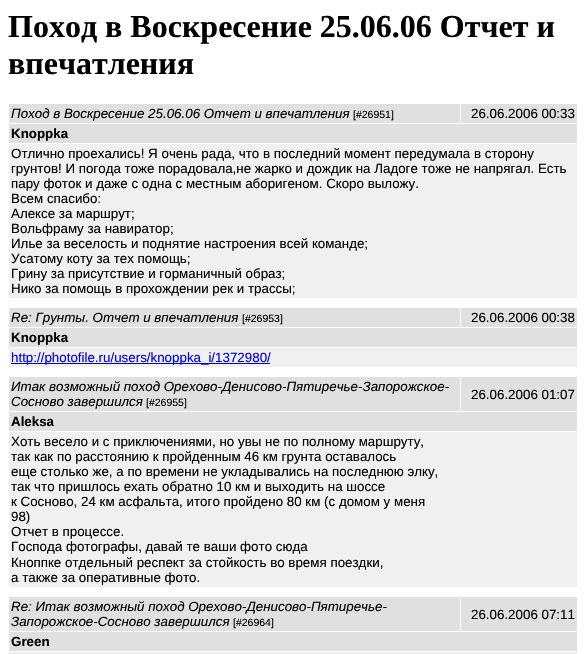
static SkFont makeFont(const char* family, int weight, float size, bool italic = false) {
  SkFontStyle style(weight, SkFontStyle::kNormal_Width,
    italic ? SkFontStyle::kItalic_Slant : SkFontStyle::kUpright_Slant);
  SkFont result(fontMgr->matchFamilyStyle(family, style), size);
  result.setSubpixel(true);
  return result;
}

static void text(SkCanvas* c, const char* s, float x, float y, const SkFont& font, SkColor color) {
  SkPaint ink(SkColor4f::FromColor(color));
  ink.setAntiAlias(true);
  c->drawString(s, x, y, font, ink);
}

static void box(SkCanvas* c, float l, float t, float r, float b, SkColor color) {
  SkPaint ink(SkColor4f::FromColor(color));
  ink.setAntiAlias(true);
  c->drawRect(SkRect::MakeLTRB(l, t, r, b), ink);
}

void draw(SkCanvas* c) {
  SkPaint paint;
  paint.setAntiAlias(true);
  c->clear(0xffffffff);
  SkFont face1 = makeFont("Liberation Serif", 700, 32);
  text(c, "Поход в Воскресение 25.06.06 Отчет и", 8, 37, face1, 0xff000000);
  text(c, "впечатления", 8, 74, face1, 0xff000000);
  box(c, 9, 104, 460, 123, 0xffe0e0e0);
  SkFont face2 = makeFont("Liberation Sans", 400, 13.35f, true);
  text(c, "Поход в Воскресение 25.06.06 Отчет и впечатления", 11, 118, face2, 0xff000000);
  SkFont face3 = makeFont("Liberation Sans", 400, 10.5f);
  text(c, "[#26951]", 353, 118, face3, 0xff000000);
  box(c, 461, 104, 577, 123, 0xffe0e0e0);
  SkFont face4 = makeFont("Liberation Sans", 400, 13.35f);
  text(c, "26.06.2006 00:33", 471, 118, face4, 0xff000000);
  box(c, 9, 124, 577, 143, 0xffe0e0e0);
  SkFont face5 = makeFont("Liberation Sans", 700, 13.35f);
  text(c, "Knoppka", 11, 138, face5, 0xff000000);
  box(c, 9, 144, 577, 298, 0xfff0f0f0);
  text(c, "Отлично проехались! Я очень рада, что в последний момент передумала в сторону", 11, 158, face4, 0xff000000);
  text(c, "грунтов! И погода тоже порадовала,не жарко и дождик на Ладоге тоже не напрягал. Есть", 11, 173, face4, 0xff000000);
  text(c, "пару фоток и даже с одна с местным аборигеном. Скоро выложу.", 11, 188, face4, 0xff000000);
  text(c, "Всем спасибо:", 11, 203, face4, 0xff000000);
  text(c, "Алексе за маршрут;", 11, 218, face4, 0xff000000);
  text(c, "Вольфраму за навиратор;", 11, 233, face4, 0xff000000);
  text(c, "Илье за веселость и поднятие настроения всей команде;", 11, 248, face4, 0xff000000);
  text(c, "Усатому коту за тех помощь;", 11, 263, face4, 0xff000000);
  text(c, "Грину за присутствие и горманичный образ;", 11, 278, face4, 0xff000000);
  text(c, "Нико за помощь в прохождении рек и трассы;", 11, 293, face4, 0xff000000);
  box(c, 9, 308, 460, 327, 0xffe0e0e0);
  text(c, "Re: Грунты. Отчет и впечатления", 11, 322, face2, 0xff000000);
  text(c, "[#26953]", 242, 322, face3, 0xff000000);
  box(c, 461, 308, 577, 327, 0xffe0e0e0);
  text(c, "26.06.2006 00:38", 471, 322, face4, 0xff000000);
  box(c, 9, 328, 577, 347, 0xffe0e0e0);
  text(c, "Knoppka", 11, 342, face5, 0xff000000);
  box(c, 9, 348, 577, 367, 0xfff0f0f0);
  box(c, 11, 363, 270, 364, 0xff0000ee);
  text(c, "http://photofile.ru/users/knoppka_i/1372980/", 11, 362, face4, 0xff0000ee);
  box(c, 9, 377, 460, 411, 0xffe0e0e0);
  text(c, "Итак возможный поход Орехово-Денисово-Пятиречье-Запорожское-", 11, 391, face2, 0xff000000);
  text(c, "Сосново завершился", 11, 406, face2, 0xff000000);
  text(c, "[#26955]", 146, 406, face3, 0xff000000);
  box(c, 461, 377, 577, 411, 0xffe0e0e0);
  text(c, "26.06.2006 01:07", 471, 399, face4, 0xff000000);
  box(c, 9, 412, 577, 431, 0xffe0e0e0);
  text(c, "Aleksa", 11, 426, face5, 0xff000000);
  box(c, 9, 432, 577, 587, 0xfff0f0f0);
  text(c, "Хоть весело и с приключениями, но увы не по полному маршруту,", 11, 446, face4, 0xff000000);
  text(c, "так как по расстоянию к пройденным 46 км грунта оставалось", 11, 461, face4, 0xff000000);
  text(c, "еще столько же, а по времени не укладывались на последнюю элку,", 11, 476, face4, 0xff000000);
  text(c, "так что пришлось ехать обратно 10 км и выходить на шоссе", 11, 491, face4, 0xff000000);
  text(c, "к Сосново, 24 км асфальта, итого пройдено 80 км (с домом у меня", 11, 506, face4, 0xff000000);
  text(c, "98)", 11, 521, face4, 0xff000000);
  text(c, "Отчет в процессе.", 11, 536, face4, 0xff000000);
  text(c, "Господа фотографы, давай те ваши фото сюда", 11, 551, face4, 0xff000000);
  text(c, "Кноппке отдельный респект за стойкость во время поездки,", 11, 567, face4, 0xff000000);
  text(c, "а также за оперативные фото.", 11, 582, face4, 0xff000000);
  box(c, 9, 597, 460, 631, 0xffe0e0e0);
  text(c, "Re: Итак возможный поход Орехово-Денисово-Пятиречье-", 11, 611, face2, 0xff000000);
  text(c, "Запорожское-Сосново завершился", 11, 626, face2, 0xff000000);
  text(c, "[#26964]", 233, 626, face3, 0xff000000);
  box(c, 461, 597, 577, 631, 0xffe0e0e0);
  text(c, "26.06.2006 07:11", 471, 619, face4, 0xff000000);
  box(c, 9, 632, 577, 651, 0xffe0e0e0);
  text(c, "Green", 11, 646, face5, 0xff000000);
  box(c, 9, 652, 577, 654, 0xfff0f0f0);
}
